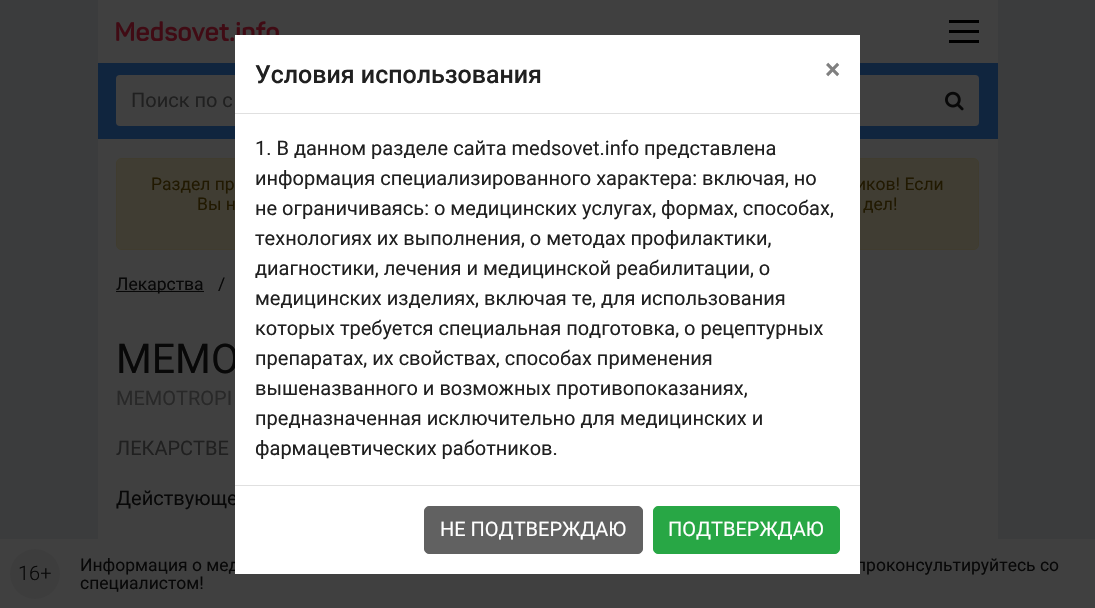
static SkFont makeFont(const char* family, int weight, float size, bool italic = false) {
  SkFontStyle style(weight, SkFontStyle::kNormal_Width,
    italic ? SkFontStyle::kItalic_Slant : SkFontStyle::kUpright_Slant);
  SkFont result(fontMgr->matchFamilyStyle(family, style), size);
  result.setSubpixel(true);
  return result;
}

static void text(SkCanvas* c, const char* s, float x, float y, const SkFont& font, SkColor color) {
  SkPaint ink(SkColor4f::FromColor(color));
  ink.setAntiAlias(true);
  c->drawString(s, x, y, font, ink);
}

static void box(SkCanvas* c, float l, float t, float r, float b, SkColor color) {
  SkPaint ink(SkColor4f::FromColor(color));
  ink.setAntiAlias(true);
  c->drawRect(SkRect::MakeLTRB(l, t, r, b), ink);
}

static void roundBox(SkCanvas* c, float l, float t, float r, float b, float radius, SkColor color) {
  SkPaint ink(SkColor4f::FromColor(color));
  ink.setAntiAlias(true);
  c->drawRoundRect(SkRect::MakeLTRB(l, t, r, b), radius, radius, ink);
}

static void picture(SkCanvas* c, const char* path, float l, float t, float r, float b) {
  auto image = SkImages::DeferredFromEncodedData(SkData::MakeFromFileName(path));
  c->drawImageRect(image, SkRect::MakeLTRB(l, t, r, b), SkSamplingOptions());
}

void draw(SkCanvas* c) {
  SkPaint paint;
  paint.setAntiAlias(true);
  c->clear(0xff3b3c3d);
  box(c, 98, 0, 998, 63, 0xff404040);
  picture(c, "img_01.png", 116, 21, 279, 41);
  box(c, 949, 20, 979, 23, 0xff000000);
  box(c, 949, 30, 979, 33, 0xff000000);
  box(c, 949, 40, 979, 43, 0xff000000);
  box(c, 98, 63, 998, 139, 0xff10253e);
  roundBox(c, 116, 75, 979, 126, 4, 0xff404040);
  SkFont face1 = makeFont("Roboto", 400, 20);
  text(c, "Поиск по с", 131, 107, face1, 0xff202020);
  picture(c, "img_02.png", 945, 91, 964, 111);
  box(c, 98, 139, 998, 539, 0xff404040);
  paint.setColor(0xff403d33);
  c->drawRoundRect(SkRect::MakeLTRB(116.5f, 158.5f, 978.5f, 249.5f), 4.5f, 4.5f, paint);
  paint.setStyle(SkPaint::kStroke_Style);
  paint.setStrokeWidth(1);
  paint.setColor(0xff403c2f);
  c->drawRoundRect(SkRect::MakeLTRB(116.5f, 158.5f, 978.5f, 249.5f), 4.5f, 4.5f, paint);
  SkFont face2 = makeFont("Roboto", 400, 17.5f);
  text(c, "иков! Если", 856, 190, face2, 0xff211901);
  SkFont face3 = makeFont("Roboto", 400, 41);
  text(c, "МЕМО", 116, 373, face3, 0xff080808);
  text(c, "Действующе", 116, 505, face1, 0xff080808);
  box(c, 0, 539, 1095, 608, 0xff404040);
  text(c, "Информация о мед", 80, 571, face2, 0xff080808);
  text(c, "проконсультируйтесь со", 856, 571, face2, 0xff080808);
  box(c, 235, 35, 860, 574, 0xffffffff);
  box(c, 235, 113, 860, 114, 0xffe0e0e0);
  SkFont face4 = makeFont("Roboto", 500, 25);
  text(c, "Условия использования", 255, 83, face4, 0xff202020);
  SkFont face5 = makeFont("Roboto", 500, 29);
  text(c, "×", 825, 79, face5, 0xff808080);
  text(c, "1. В данном разделе сайта medsovet.info представлена", 255, 155, face1, 0xff202020);
  text(c, "информация специализированного характера: включая, но", 255, 185, face1, 0xff202020);
  text(c, "не ограничиваясь: о медицинских услугах, формах, способах,", 255, 215, face1, 0xff202020);
  text(c, "технологиях их выполнения, о методах профилактики,", 255, 245, face1, 0xff202020);
  text(c, "диагностики, лечения и медицинской реабилитации, о", 255, 275, face1, 0xff202020);
  text(c, "медицинских изделиях, включая те, для использования", 255, 305, face1, 0xff202020);
  text(c, "которых требуется специальная подготовка, о рецептурных", 255, 335, face1, 0xff202020);
  text(c, "препаратах, их свойствах, способах применения", 255, 365, face1, 0xff202020);
  text(c, "вышеназванного и возможных противопоказаниях,", 255, 395, face1, 0xff202020);
  text(c, "предназначенная исключительно для медицинских и", 255, 425, face1, 0xff202020);
  text(c, "фармацевтических работников.", 255, 455, face1, 0xff202020);
  box(c, 235, 485, 860, 486, 0xffe0e0e0);
  paint.setStyle(SkPaint::kFill_Style);
  paint.setColor(0xff616161);
  c->drawRoundRect(SkRect::MakeLTRB(424.5f, 506.5f, 642.5f, 553.5f), 4.5f, 4.5f, paint);
  paint.setStyle(SkPaint::kStroke_Style);
  c->drawRoundRect(SkRect::MakeLTRB(424.5f, 506.5f, 642.5f, 553.5f), 4.5f, 4.5f, paint);
  text(c, "НЕ ПОДТВЕРЖДАЮ", 440, 536, face1, 0xffffffff);
  paint.setStyle(SkPaint::kFill_Style);
  paint.setColor(0xff28a745);
  c->drawRoundRect(SkRect::MakeLTRB(653.5f, 506.5f, 839.5f, 553.5f), 4.5f, 4.5f, paint);
  paint.setStyle(SkPaint::kStroke_Style);
  c->drawRoundRect(SkRect::MakeLTRB(653.5f, 506.5f, 839.5f, 553.5f), 4.5f, 4.5f, paint);
  text(c, "ПОДТВЕРЖДАЮ", 668, 536, face1, 0xffffffff);
  text(c, "Раздел пр", 151, 190, face2, 0xff211901);
  text(c, "Вы н", 197, 210, face2, 0xff211901);
  text(c, "дел!", 863, 210, face2, 0xff211901);
  box(c, 116, 291, 204, 292, 0xff080808);
  text(c, "Лекарства", 116, 290, face2, 0xff080808);
  text(c, "/", 218, 290, face2, 0xff080808);
  text(c, "MEMOTROPI", 116, 405, face1, 0xff282828);
  text(c, "ЛЕКАРСТВЕ", 116, 455, face1, 0xff202020);
  paint.setStyle(SkPaint::kFill_Style);
  paint.setColor(0xff3d3d3d);
  c->drawCircle(35, 574, 25, paint);
  SkFont face6 = makeFont("Roboto", 300, 20);
  text(c, "16+", 18, 580, face6, 0xff080808);
  text(c, "специалистом!", 80, 589, face2, 0xff080808);
}
